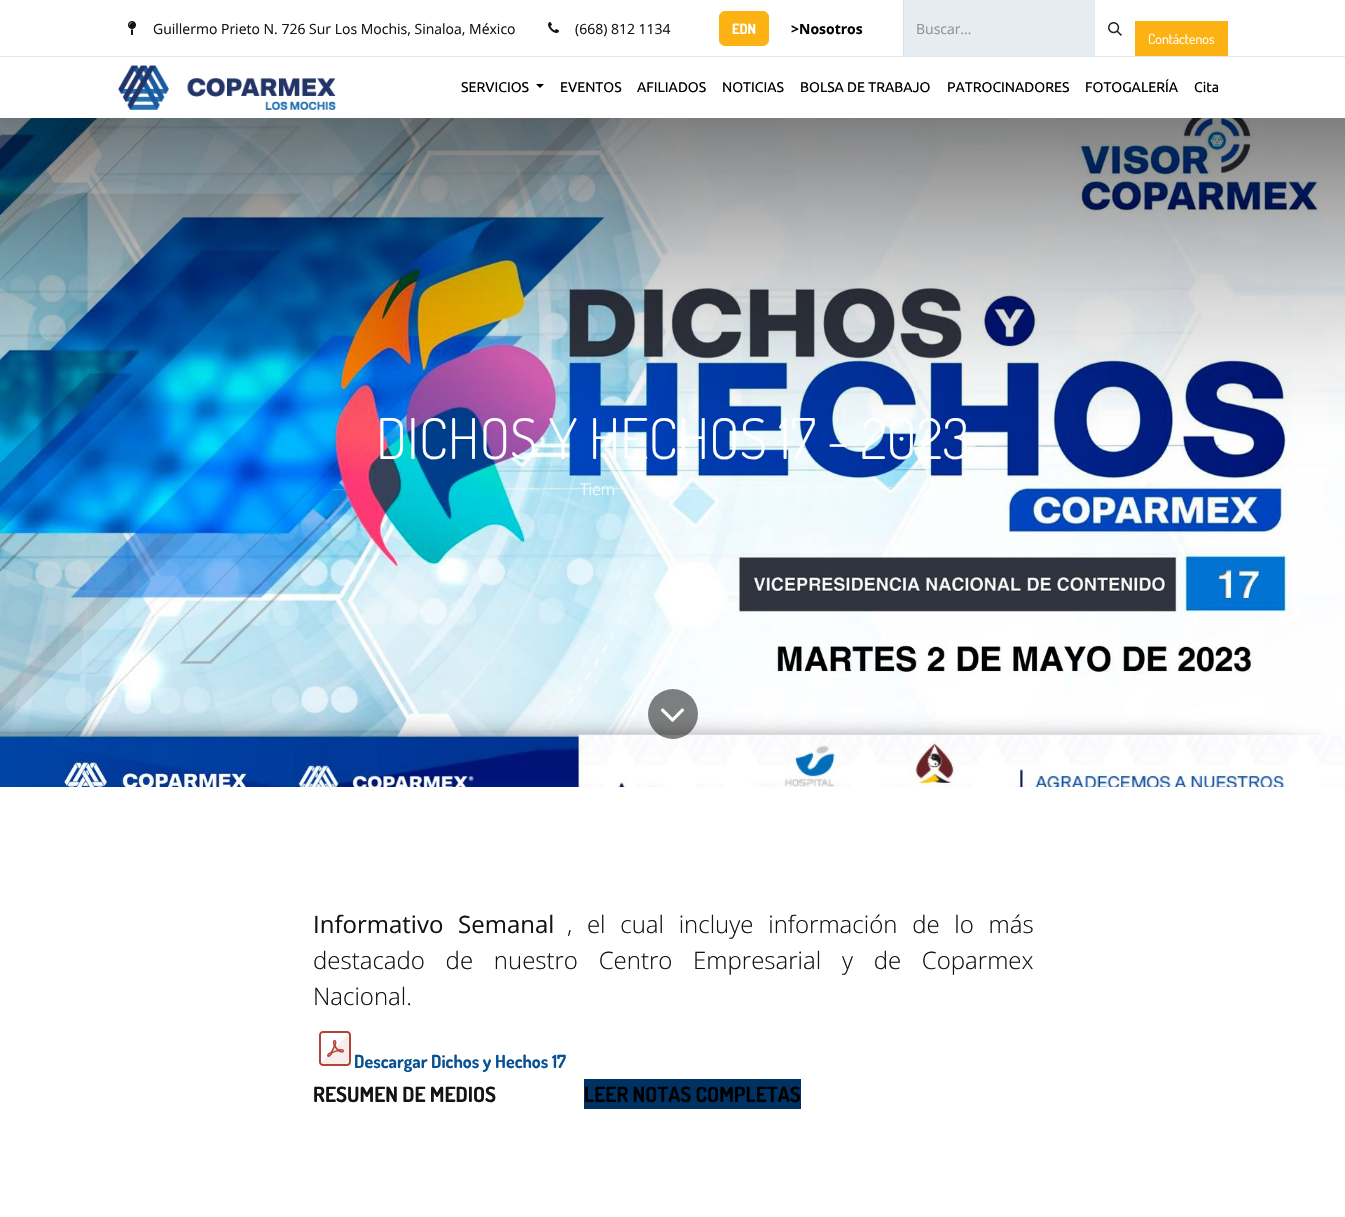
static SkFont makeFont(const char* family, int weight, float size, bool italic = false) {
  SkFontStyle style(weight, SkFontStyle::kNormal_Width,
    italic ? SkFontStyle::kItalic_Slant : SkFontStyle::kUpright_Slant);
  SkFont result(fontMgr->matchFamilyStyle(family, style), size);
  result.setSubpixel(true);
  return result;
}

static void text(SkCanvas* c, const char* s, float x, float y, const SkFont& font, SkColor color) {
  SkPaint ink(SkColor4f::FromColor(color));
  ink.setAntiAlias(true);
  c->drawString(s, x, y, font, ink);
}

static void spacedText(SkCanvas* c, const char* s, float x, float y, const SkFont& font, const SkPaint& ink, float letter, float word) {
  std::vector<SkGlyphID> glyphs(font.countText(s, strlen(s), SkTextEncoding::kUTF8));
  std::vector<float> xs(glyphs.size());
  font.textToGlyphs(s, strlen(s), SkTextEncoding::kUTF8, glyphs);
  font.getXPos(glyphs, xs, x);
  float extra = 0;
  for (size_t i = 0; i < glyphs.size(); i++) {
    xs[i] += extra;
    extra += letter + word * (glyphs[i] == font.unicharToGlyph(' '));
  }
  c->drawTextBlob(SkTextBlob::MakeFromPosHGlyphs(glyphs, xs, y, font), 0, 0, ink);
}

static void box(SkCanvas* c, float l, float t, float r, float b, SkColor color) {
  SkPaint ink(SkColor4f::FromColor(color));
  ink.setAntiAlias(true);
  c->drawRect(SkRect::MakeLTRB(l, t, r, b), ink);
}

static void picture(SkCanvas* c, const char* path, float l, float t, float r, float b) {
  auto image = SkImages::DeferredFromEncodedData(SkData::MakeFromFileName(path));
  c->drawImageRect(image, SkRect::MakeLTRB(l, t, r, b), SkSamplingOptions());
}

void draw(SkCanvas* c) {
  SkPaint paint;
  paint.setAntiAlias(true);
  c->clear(0xffffffff);
  box(c, 0, 56, 1345, 57, 0xffe6e6e6);
  picture(c, "img_01.png", 128, 21, 136, 35);
  SkFont face1 = makeFont("Open Sans", 400, 14);
  text(c, "Guillermo Prieto N. 726 Sur Los Mochis, Sinaloa, México", 153, 34, face1, 0xff141414);
  picture(c, "img_02.png", 548, 22, 559, 33);
  text(c, "(668) 812 1134", 575, 34, face1, 0xff141414);
  paint.setColor(0xfffdb214);
  c->drawRoundRect(SkRect::MakeLTRB(719.5f, 11.5f, 768.5f, 45.5f), 5.5f, 5.5f, paint);
  paint.setStyle(SkPaint::kStroke_Style);
  paint.setStrokeWidth(1);
  c->drawRoundRect(SkRect::MakeLTRB(719.5f, 11.5f, 768.5f, 45.5f), 5.5f, 5.5f, paint);
  SkFont face2 = makeFont("Dosis", 700, 14);
  text(c, "EDN", 732, 34, face2, 0xffffffff);
  SkFont face3 = makeFont("Open Sans", 700, 14);
  text(c, ">Nosotros", 791, 34, face3, 0xff000000);
  box(c, 904, 0, 1095, 56, 0xffe5edf2);
  box(c, 903, 0, 904, 56, 0xffdededf);
  text(c, "Buscar…", 916, 34, face1, 0xff909294);
  picture(c, "img_03.png", 1108, 22, 1122, 36);
  box(c, 1135, 21, 1228, 56, 0xfffdb214);
  SkFont face4 = makeFont("Dosis", 400, 14);
  text(c, "Contáctenos", 1148, 44, face4, 0xffffffff);
  picture(c, "img_04.png", 118, 65, 336, 110);
  SkFont face5 = makeFont("Ubuntu", 400, 14);
  text(c, "SERVICIOS", 461, 92, face5, 0xff000000);
  paint.setStyle(SkPaint::kFill_Style);
  paint.setColor(0xff000000);
  c->drawPath(SkPathBuilder().moveTo(536, 84).lineTo(544, 84).lineTo(540, 88).close().detach(), paint);
  text(c, "EVENTOS", 560, 92, face5, 0xff000000);
  text(c, "AFILIADOS", 637, 92, face5, 0xff000000);
  text(c, "NOTICIAS", 722, 92, face5, 0xff000000);
  text(c, "BOLSA DE TRABAJO", 800, 92, face5, 0xff000000);
  text(c, "PATROCINADORES", 947, 92, face5, 0xff000000);
  text(c, "FOTOGALERÍA", 1085, 92, face5, 0xff000000);
  text(c, "Cita", 1194, 92, face5, 0xff000000);
  picture(c, "img_05.png", 0, 118, 1345, 787);
  SkFont face6 = makeFont("Dosis", 300, 56);
  text(c, "DICHOS Y HECHOS 17 - 2023", 376, 459, face6, 0xffffffff);
  SkFont face7 = makeFont("Open Sans", 300, 16);
  text(c, "Tiem", 580, 495, face7, 0xffffffff);
  paint.setColor(0x80000000);
  c->drawCircle(673, 714, 25, paint);
  picture(c, "img_06.png", 660, 708, 685, 722);
  SkFont face8 = makeFont("Open Sans", 400, 24);
  paint.setColor(0xff141414);
  spacedText(c, "Informativo Semanal", 313, 933, face8, paint, 0, 8.5f);
  SkFont face9 = makeFont("Open Sans", 300, 24);
  spacedText(c, ", el cual incluye información de lo más", 567, 933, face9, paint, 0, 8.5f);
  spacedText(c, "destacado de nuestro Centro Empresarial y de Coparmex", 313, 969, face9, paint, 0, 14.5f);
  text(c, "Nacional.", 313, 1005, face9, 0xff141414);
  picture(c, "img_07.png", 319, 1031, 351, 1066);
  SkFont face10 = makeFont("Dosis", 700, 18);
  text(c, "Descargar Dichos y Hechos 17", 354, 1068, face10, 0xff085294);
  SkFont face11 = makeFont("Dosis", 700, 21);
  text(c, "RESUMEN DE MEDIOS", 313, 1102, face11, 0xff141414);
  box(c, 584, 1079, 801, 1109, 0xff003163);
  text(c, "LEER NOTAS COMPLETAS", 584, 1102, face11, 0xff000000);
}
